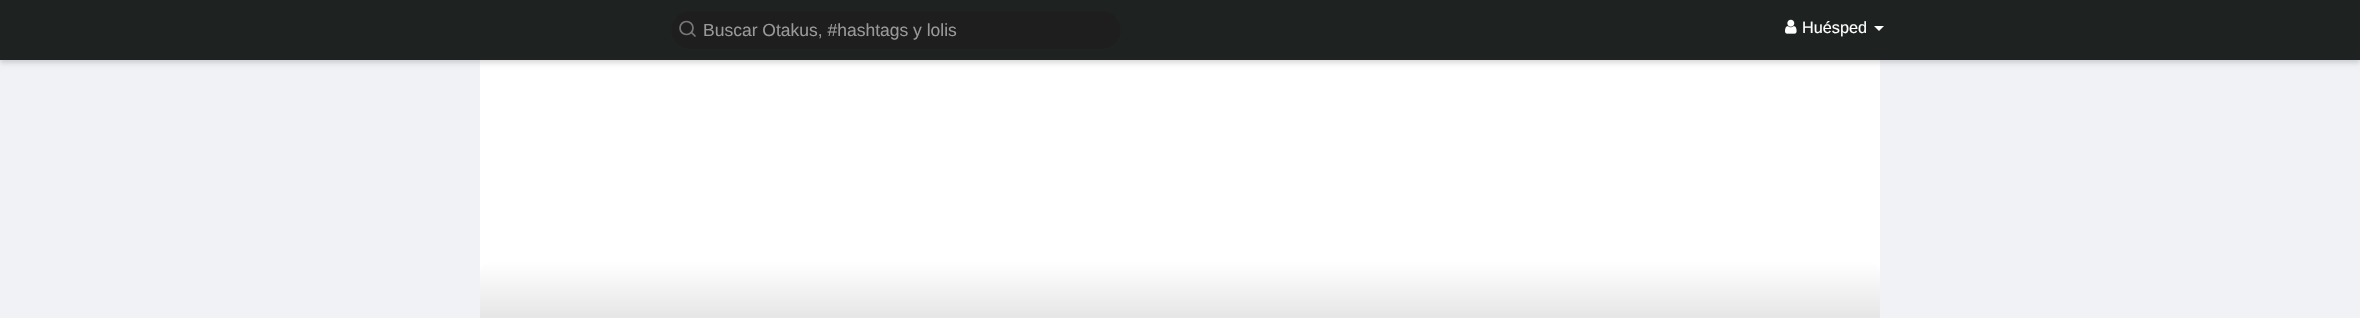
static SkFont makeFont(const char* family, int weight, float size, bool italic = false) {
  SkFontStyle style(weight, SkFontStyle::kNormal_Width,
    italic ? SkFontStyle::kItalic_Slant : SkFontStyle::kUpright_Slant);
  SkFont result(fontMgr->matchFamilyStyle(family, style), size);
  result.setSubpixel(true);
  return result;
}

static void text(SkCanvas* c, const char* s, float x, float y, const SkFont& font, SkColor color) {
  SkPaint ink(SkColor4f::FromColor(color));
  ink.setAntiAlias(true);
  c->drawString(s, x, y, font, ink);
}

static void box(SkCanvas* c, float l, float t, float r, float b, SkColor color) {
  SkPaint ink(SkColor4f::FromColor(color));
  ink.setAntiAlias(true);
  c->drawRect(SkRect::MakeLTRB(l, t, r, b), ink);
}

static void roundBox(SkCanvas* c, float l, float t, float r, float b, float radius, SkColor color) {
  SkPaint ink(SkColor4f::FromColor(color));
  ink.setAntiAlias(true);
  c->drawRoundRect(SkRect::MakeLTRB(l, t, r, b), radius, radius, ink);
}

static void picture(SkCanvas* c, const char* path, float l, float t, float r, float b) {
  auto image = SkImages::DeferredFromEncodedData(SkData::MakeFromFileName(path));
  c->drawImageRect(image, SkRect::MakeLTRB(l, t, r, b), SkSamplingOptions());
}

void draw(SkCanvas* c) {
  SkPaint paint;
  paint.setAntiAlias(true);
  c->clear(0xfff0f2f5);
  box(c, 480, 60, 1880, 273, 0xffffffff);
  paint.setColor(0x26000000);
  paint.setMaskFilter(SkMaskFilter::MakeBlur(kNormal_SkBlurStyle, 2.5f));
  c->drawRect(SkRect::MakeLTRB(0, 3, 2360, 63), paint);
  paint.setMaskFilter(nullptr);
  box(c, 0, 0, 2360, 60, 0xff1e2321);
  roundBox(c, 671, 11, 1121, 49, 19, 0xff1e1e1f);
  paint.setStyle(SkPaint::kStroke_Style);
  paint.setStrokeWidth(1.7f);
  paint.setColor(0xff787878);
  c->drawCircle(686.5f, 28, 6.5f, paint);
  paint.setStrokeCap(SkPaint::kRound_Cap);
  paint.setStrokeJoin(SkPaint::kRound_Join);
  c->drawPath(SkPathBuilder().moveTo(695, 36).lineTo(691.5f, 32.5f).detach(), paint);
  SkFont face1 = makeFont("Liberation Sans", 400, 17.5f);
  text(c, "Buscar Otakus, #hashtags y lolis", 703, 36, face1, 0xff999999);
  picture(c, "img_01.png", 1785, 19, 1797, 34);
  SkFont face2 = makeFont("Liberation Sans", 400, 16.25f);
  text(c, "Huésped", 1802, 33, face2, 0xffffffff);
  paint.setStyle(SkPaint::kFill_Style);
  paint.setColor(0xffffffff);
  c->drawPath(SkPathBuilder().moveTo(1874, 26).lineTo(1884, 26).lineTo(1879, 31).close().detach(), paint);
  {
    const SkColor colors[] = {0xffffffff, 0xff8c8c8c};
    const float stops[] = {0, 1};
    const SkPoint ends[] = {{1180, 262}, {1180, 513}};
    paint.setShader(SkGradientShader::MakeLinear(ends, colors, stops, 2, SkTileMode::kClamp));
    paint.setAlpha(255);
  }
  c->drawRoundRect(SkRect::MakeLTRB(480, 263, 1880, 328), 10, 10, paint);
}
